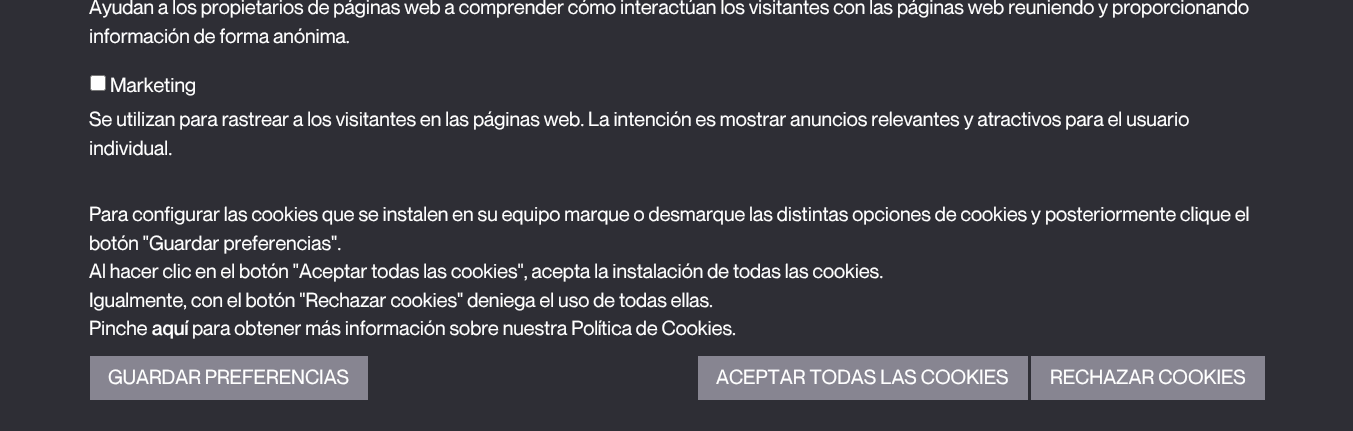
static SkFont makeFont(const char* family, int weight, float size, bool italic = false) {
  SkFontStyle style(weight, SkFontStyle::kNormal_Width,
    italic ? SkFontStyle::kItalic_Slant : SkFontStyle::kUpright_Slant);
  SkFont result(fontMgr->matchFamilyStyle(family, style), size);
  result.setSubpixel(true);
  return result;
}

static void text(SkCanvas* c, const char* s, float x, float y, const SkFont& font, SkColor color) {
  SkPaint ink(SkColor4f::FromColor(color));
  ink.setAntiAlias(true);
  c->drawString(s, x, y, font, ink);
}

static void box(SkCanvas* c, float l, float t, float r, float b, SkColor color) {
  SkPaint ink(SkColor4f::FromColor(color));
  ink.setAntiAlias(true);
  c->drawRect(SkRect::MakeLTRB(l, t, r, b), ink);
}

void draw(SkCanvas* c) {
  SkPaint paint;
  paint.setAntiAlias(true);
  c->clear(0xff2e2e35);
  SkFont face1 = makeFont("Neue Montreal", 400, 20);
  text(c, "Ayudan a los propietarios de páginas web a comprender cómo interactúan los visitantes con las páginas web reuniendo y proporcionando", 89, 14, face1, 0xffffffff);
  text(c, "información de forma anónima.", 89, 43, face1, 0xffffffff);
  paint.setColor(0xffffffff);
  c->drawRoundRect(SkRect::MakeLTRB(90.5f, 75.5f, 105.5f, 90.5f), 2, 2, paint);
  paint.setStyle(SkPaint::kStroke_Style);
  paint.setStrokeWidth(1);
  paint.setColor(0xff767676);
  c->drawRoundRect(SkRect::MakeLTRB(90.5f, 75.5f, 105.5f, 90.5f), 2, 2, paint);
  text(c, "Marketing", 110, 92, face1, 0xffffffff);
  text(c, "Se utilizan para rastrear a los visitantes en las páginas web. La intención es mostrar anuncios relevantes y atractivos para el usuario", 89, 126, face1, 0xffffffff);
  text(c, "individual.", 89, 155, face1, 0xffffffff);
  text(c, "Para configurar las cookies que se instalen en su equipo marque o desmarque las distintas opciones de cookies y posteriormente clique el", 89, 221, face1, 0xffffffff);
  text(c, "botón \"Guardar preferencias\".", 89, 250, face1, 0xffffffff);
  text(c, "Al hacer clic en el botón \"Aceptar todas las cookies\", acepta la instalación de todas las cookies.", 89, 278, face1, 0xffffffff);
  text(c, "Igualmente, con el botón \"Rechazar cookies\" deniega el uso de todas ellas.", 89, 307, face1, 0xffffffff);
  text(c, "Pinche", 89, 335, face1, 0xffffffff);
  SkFont face2 = makeFont("Neue Montreal", 500, 20);
  text(c, "aquí", 152, 335, face2, 0xffffffff);
  text(c, "para obtener más información sobre nuestra Política de Cookies.", 192, 335, face1, 0xffffffff);
  box(c, 90, 356, 368, 400, 0xff878591);
  text(c, "GUARDAR PREFERENCIAS", 108, 384, face1, 0xffffffff);
  box(c, 698, 356, 1028, 400, 0xff878591);
  text(c, "ACEPTAR TODAS LAS COOKIES", 716, 384, face1, 0xffffffff);
  box(c, 1031, 356, 1265, 400, 0xff878591);
  text(c, "RECHAZAR COOKIES", 1050, 384, face1, 0xffffffff);
}
